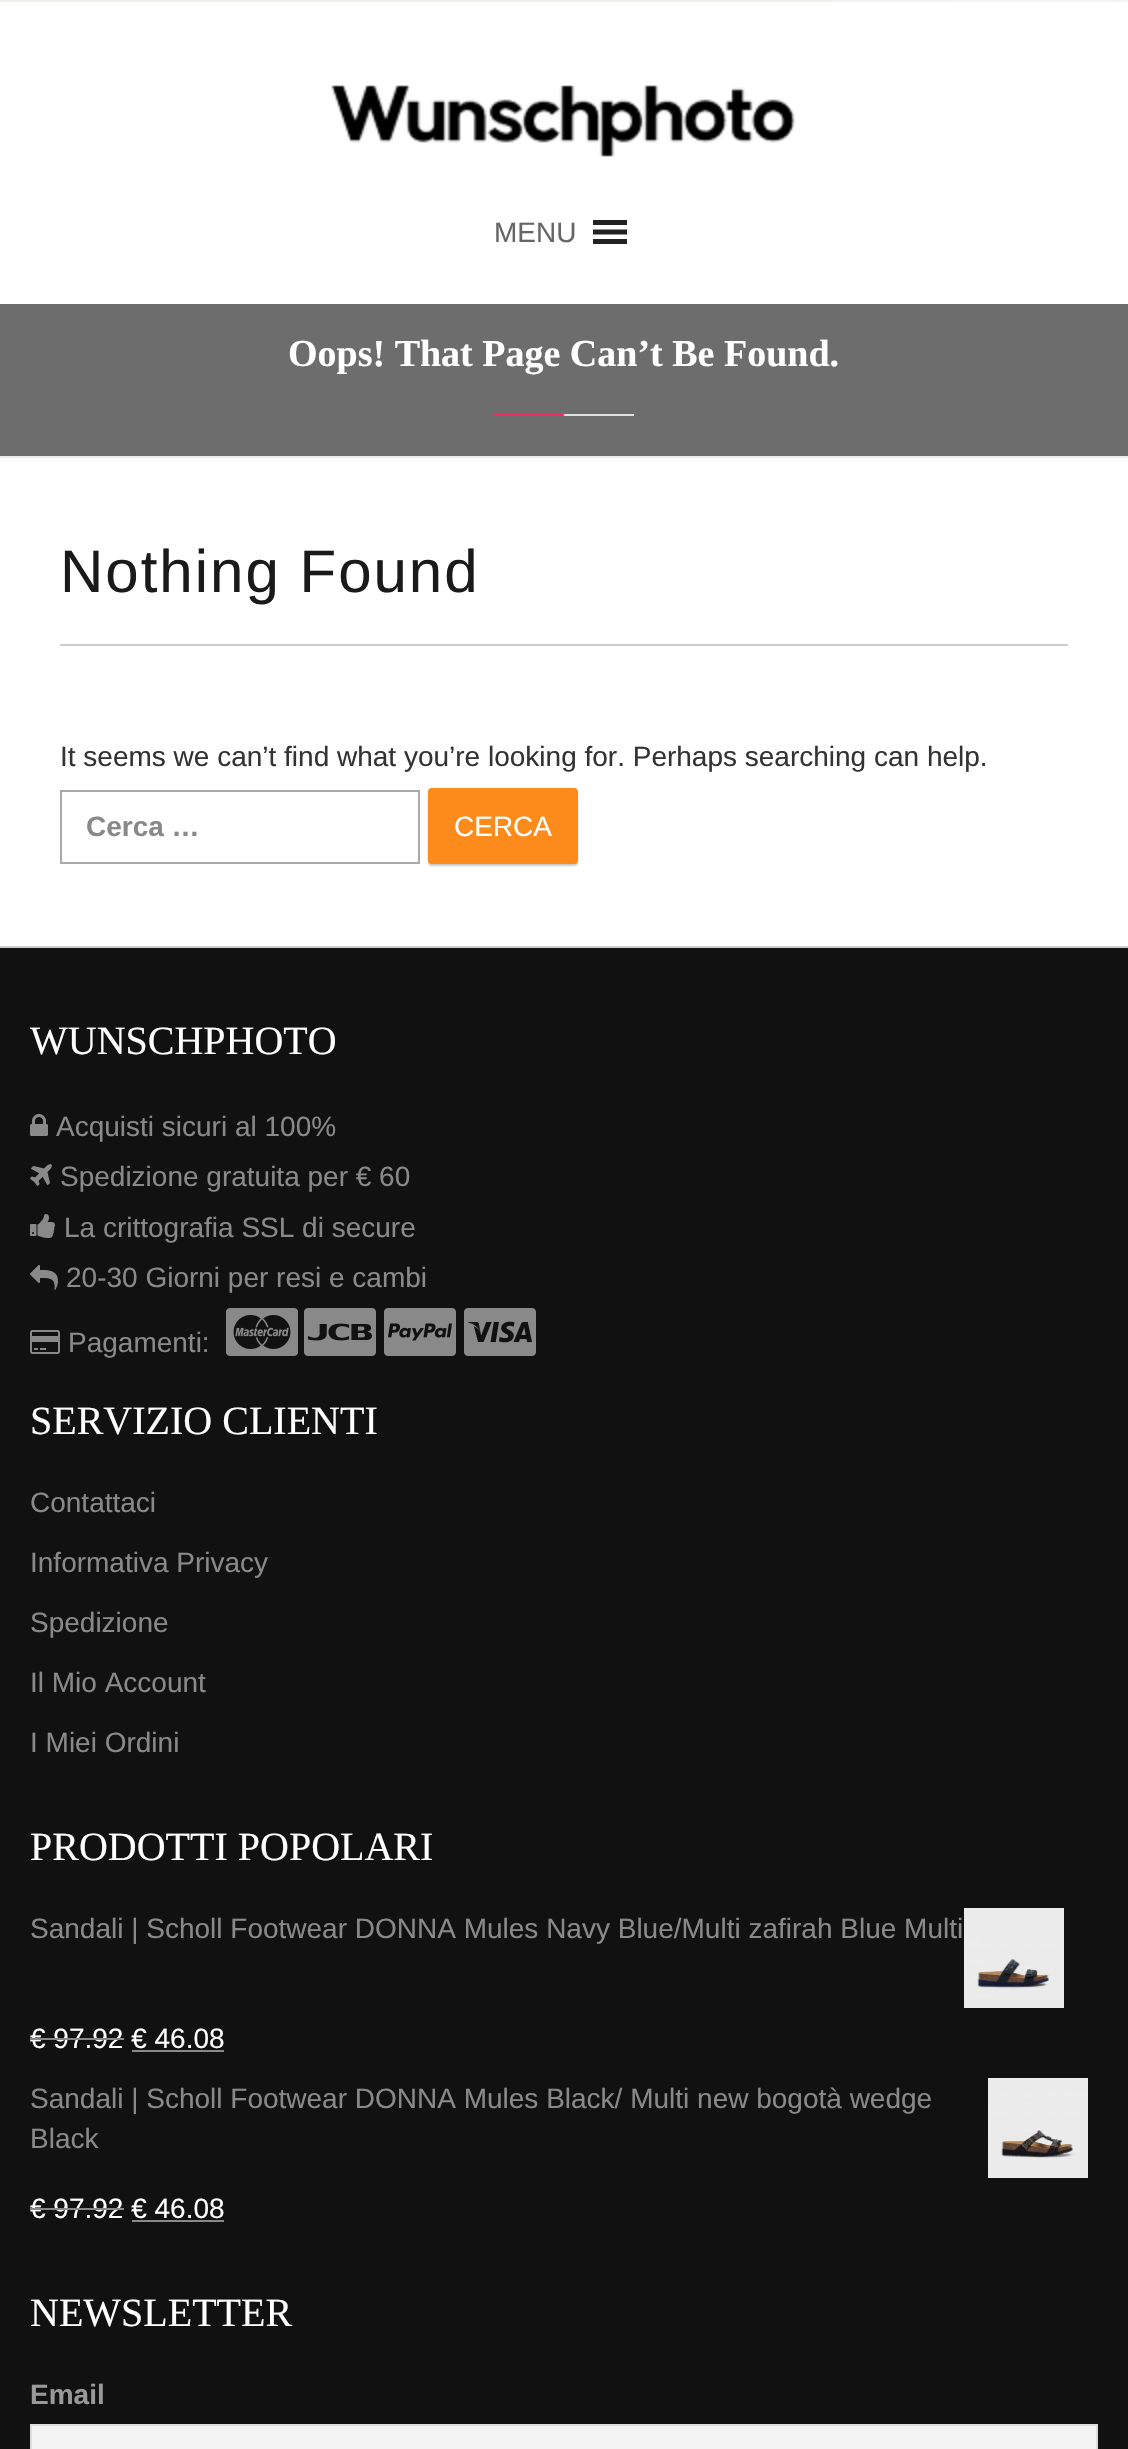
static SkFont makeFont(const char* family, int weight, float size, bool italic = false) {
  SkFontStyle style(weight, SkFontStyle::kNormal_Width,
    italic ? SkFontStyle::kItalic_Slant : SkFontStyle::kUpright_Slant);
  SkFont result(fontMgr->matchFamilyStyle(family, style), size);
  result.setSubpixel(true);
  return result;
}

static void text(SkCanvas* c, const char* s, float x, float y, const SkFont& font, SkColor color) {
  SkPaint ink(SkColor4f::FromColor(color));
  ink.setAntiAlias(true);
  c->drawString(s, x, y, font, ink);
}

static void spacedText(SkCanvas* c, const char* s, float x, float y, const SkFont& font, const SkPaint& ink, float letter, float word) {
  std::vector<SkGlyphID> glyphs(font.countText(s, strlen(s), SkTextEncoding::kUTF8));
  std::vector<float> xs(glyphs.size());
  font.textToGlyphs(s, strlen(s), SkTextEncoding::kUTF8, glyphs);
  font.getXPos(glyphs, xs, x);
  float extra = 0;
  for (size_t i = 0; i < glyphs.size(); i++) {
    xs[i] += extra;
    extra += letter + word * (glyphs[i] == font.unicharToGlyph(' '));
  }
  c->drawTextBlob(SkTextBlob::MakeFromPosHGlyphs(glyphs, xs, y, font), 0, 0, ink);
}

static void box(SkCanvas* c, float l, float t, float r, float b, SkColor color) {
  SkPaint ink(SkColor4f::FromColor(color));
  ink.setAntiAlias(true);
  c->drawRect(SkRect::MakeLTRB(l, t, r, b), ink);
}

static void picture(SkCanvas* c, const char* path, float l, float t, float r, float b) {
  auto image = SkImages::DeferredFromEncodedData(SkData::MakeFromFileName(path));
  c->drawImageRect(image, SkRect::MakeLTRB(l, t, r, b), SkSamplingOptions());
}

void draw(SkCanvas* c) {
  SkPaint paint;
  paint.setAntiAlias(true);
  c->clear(0xffffffff);
  box(c, 0, 0, 833, 2, 0xfff0f1eb);
  picture(c, "img_01.png", 833, 0, 1128, 2);
  picture(c, "img_02.png", 331, 85, 795, 157);
  SkFont face1 = makeFont("Liberation Sans", 400, 28);
  text(c, "MENU", 494, 242, face1, 0xff666666);
  paint.setColor(0xff222222);
  c->drawPath(SkPathBuilder().moveTo(627, 225).lineTo(627, 220).lineTo(593, 220).lineTo(593, 225).close().moveTo(627, 234.5f).lineTo(627, 229.5f).lineTo(593, 229.5f).lineTo(593, 234.5f).close().moveTo(627, 244).lineTo(627, 239).lineTo(593, 239).lineTo(593, 244).close().detach(), paint);
  box(c, 0, 304, 1128, 456, 0xff6d6d6d);
  box(c, 0, 456, 1128, 458, 0xffebebeb);
  picture(c, "img_03.png", 494, 414, 634, 416);
  SkFont face2 = makeFont("Liberation Serif", 700, 38);
  text(c, "Oops! That Page Can’t Be Found.", 288, 366, face2, 0xffffffff);
  SkFont face3 = makeFont("Liberation Sans", 400, 60);
  paint.setColor(0xff1a1a1a);
  spacedText(c, "Nothing Found", 60, 592, face3, paint, 2, 0);
  box(c, 60, 644, 1068, 646, 0xffcccccc);
  text(c, "It seems we can’t find what you’re looking for. Perhaps searching can help.", 60, 766, face1, 0xff333333);
  paint.setStyle(SkPaint::kStroke_Style);
  paint.setStrokeWidth(2);
  paint.setColor(0xffaaaaaa);
  c->drawRect(SkRect::MakeLTRB(61, 791, 419, 863), paint);
  SkFont face4 = makeFont("Liberation Sans", 700, 28);
  text(c, "Cerca …", 86, 836, face4, 0xff898989);
  paint.setStyle(SkPaint::kFill_Style);
  paint.setColor(0x40242424);
  paint.setMaskFilter(SkMaskFilter::MakeBlur(kNormal_SkBlurStyle, 1));
  c->drawRoundRect(SkRect::MakeLTRB(428, 790, 578, 866), 4, 4, paint);
  paint.setMaskFilter(nullptr);
  paint.setColor(0xfffc8b1c);
  c->drawRoundRect(SkRect::MakeLTRB(429, 789, 577, 863), 3, 3, paint);
  paint.setStyle(SkPaint::kStroke_Style);
  c->drawRoundRect(SkRect::MakeLTRB(429, 789, 577, 863), 3, 3, paint);
  text(c, "CERCA", 454, 836, face1, 0xffffffff);
  box(c, 0, 948, 1128, 2449, 0xff111111);
  box(c, 0, 946, 1128, 948, 0xffcccccc);
  SkFont face5 = makeFont("Liberation Serif", 400, 40);
  text(c, "WUNSCHPHOTO", 30, 1054, face5, 0xffffffff);
  picture(c, "img_04.png", 30, 1114, 48, 1136);
  text(c, "Acquisti sicuri al 100%", 56, 1136, face1, 0xff898989);
  picture(c, "img_05.png", 30, 1164, 52, 1186);
  text(c, "Spedizione gratuita per € 60", 60, 1186, face1, 0xff898989);
  picture(c, "img_06.png", 30, 1214, 55, 1238);
  text(c, "La crittografia SSL di secure", 64, 1237, face1, 0xff898989);
  picture(c, "img_07.png", 30, 1265, 58, 1290);
  text(c, "20-30 Giorni per resi e cambi", 66, 1287, face1, 0xff898989);
  picture(c, "img_08.png", 30, 1330, 60, 1354);
  text(c, "Pagamenti:", 68, 1352, face1, 0xff898989);
  picture(c, "img_09.png", 226, 1308, 298, 1356);
  picture(c, "img_10.png", 304, 1308, 376, 1356);
  picture(c, "img_11.png", 384, 1308, 456, 1356);
  picture(c, "img_12.png", 464, 1308, 536, 1356);
  text(c, "SERVIZIO CLIENTI", 30, 1434, face5, 0xffffffff);
  text(c, "Contattaci", 30, 1512, face1, 0xff898989);
  text(c, "Informativa Privacy", 30, 1572, face1, 0xff898989);
  text(c, "Spedizione", 30, 1632, face1, 0xff898989);
  text(c, "Il Mio Account", 30, 1692, face1, 0xff898989);
  text(c, "I Miei Ordini", 30, 1752, face1, 0xff898989);
  text(c, "PRODOTTI POPOLARI", 30, 1860, face5, 0xffffffff);
  text(c, "Sandali | Scholl Footwear DONNA Mules Navy Blue/Multi zafirah Blue Multi", 30, 1938, face1, 0xff898989);
  picture(c, "img_13.png", 964, 1908, 1064, 2008);
  text(c, "€ 97.92 € 46.08", 30, 2048, face1, 0xffffffff);
  box(c, 30, 2038, 124, 2040, 0xff898989);
  box(c, 132, 2050, 224, 2052, 0xff898989);
  text(c, "Sandali | Scholl Footwear DONNA Mules Black/ Multi new bogotà wedge", 30, 2108, face1, 0xff898989);
  picture(c, "img_14.png", 988, 2078, 1088, 2178);
  text(c, "Black", 30, 2148, face1, 0xff898989);
  text(c, "€ 97.92 € 46.08", 30, 2218, face1, 0xffffffff);
  box(c, 30, 2208, 124, 2210, 0xff898989);
  box(c, 132, 2220, 224, 2222, 0xff898989);
  text(c, "NEWSLETTER", 30, 2326, face5, 0xffffffff);
  text(c, "Email", 30, 2404, face4, 0xff999999);
  paint.setStyle(SkPaint::kFill_Style);
  paint.setColor(0xfff4f4f4);
  c->drawRect(SkRect::MakeLTRB(31, 2425, 1097, 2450), paint);
  paint.setStyle(SkPaint::kStroke_Style);
  paint.setColor(0xffdddddd);
  c->drawRect(SkRect::MakeLTRB(31, 2425, 1097, 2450), paint);
}
